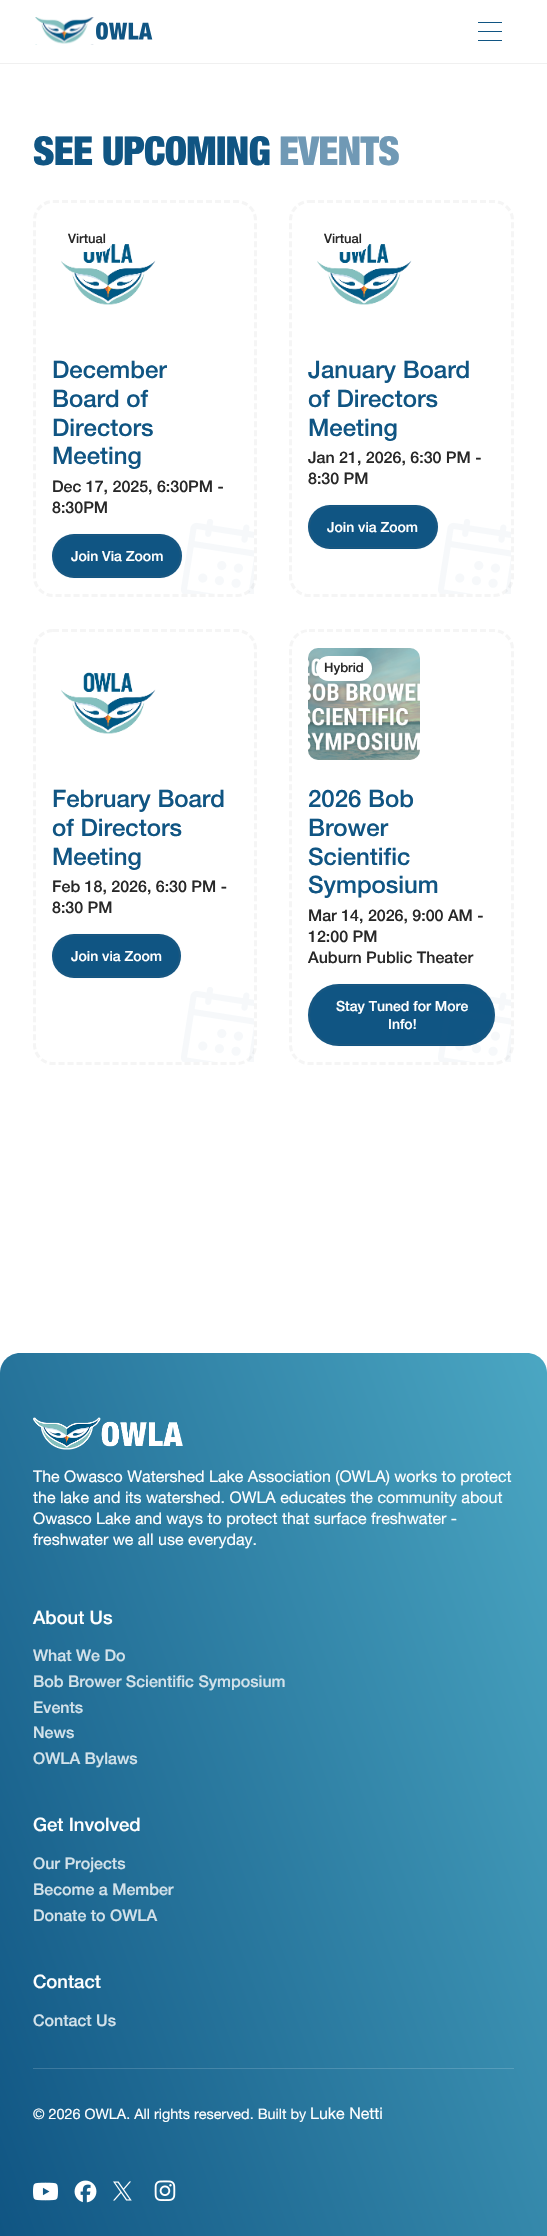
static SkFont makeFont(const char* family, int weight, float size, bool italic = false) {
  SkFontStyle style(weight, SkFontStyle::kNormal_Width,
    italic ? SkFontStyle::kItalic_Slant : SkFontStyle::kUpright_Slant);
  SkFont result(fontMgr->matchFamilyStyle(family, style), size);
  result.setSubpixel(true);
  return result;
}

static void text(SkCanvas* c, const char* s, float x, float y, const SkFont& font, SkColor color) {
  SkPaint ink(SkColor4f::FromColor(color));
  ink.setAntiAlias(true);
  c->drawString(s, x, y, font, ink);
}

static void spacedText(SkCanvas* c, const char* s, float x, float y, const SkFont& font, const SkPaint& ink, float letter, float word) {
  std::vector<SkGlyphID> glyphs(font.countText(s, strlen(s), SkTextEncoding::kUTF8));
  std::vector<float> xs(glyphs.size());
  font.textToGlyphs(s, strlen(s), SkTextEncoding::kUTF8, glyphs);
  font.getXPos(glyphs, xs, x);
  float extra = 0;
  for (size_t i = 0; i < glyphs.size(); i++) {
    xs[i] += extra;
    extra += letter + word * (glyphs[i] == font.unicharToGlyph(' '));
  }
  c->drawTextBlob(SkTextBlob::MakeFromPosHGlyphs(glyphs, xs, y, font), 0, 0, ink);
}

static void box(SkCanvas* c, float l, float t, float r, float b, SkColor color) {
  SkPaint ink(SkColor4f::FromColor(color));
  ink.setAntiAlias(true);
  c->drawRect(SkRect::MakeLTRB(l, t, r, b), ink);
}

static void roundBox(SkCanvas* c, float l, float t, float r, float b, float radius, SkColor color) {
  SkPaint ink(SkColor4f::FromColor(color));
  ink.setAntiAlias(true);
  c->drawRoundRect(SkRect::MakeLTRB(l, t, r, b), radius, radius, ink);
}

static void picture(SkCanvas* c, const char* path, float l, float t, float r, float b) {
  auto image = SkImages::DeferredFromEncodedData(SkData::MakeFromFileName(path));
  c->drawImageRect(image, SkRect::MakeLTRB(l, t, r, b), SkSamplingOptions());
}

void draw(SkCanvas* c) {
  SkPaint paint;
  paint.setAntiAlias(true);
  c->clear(0xffffffff);
  box(c, 0, 63, 547, 64, 0xfff0f0f0);
  picture(c, "img_01.png", 35, 17, 153, 45);
  box(c, 478, 22, 502, 23, 0xff105583);
  box(c, 478, 31, 502, 32, 0xff105583);
  box(c, 478, 40, 502, 41, 0xff105583);
  SkFont face1 = makeFont("Helvetica Neue", 900, 40);
  paint.setColor(0xff105583);
  spacedText(c, "SEE UPCOMING", 33, 165, face1, paint, -0.75f, 0);
  paint.setColor(0xff7099b5);
  spacedText(c, "EVENTS", 279, 165, face1, paint, -0.75f, 0);
  paint.setStyle(SkPaint::kStroke_Style);
  paint.setStrokeWidth(3);
  paint.setColor(0xfff5f5f5);
  paint.setPathEffect(SkDashPathEffect::Make({{6, 3}}, 0));
  c->drawPath(SkPathBuilder().moveTo(53, 201.5f).lineTo(237, 201.5f).cubicTo(247, 201.5f, 255.5f, 210, 255.5f, 220).lineTo(255.5f, 577).cubicTo(255.5f, 587, 247, 595.5f, 237, 595.5f).lineTo(53, 595.5f).cubicTo(43, 595.5f, 34.5f, 587, 34.5f, 577).lineTo(34.5f, 220).cubicTo(34.5f, 210, 43, 201.5f, 53, 201.5f).close().detach(), paint);
  paint.setPathEffect(nullptr);
  picture(c, "img_02.png", 61, 243, 156, 305);
  roundBox(c, 60, 227, 113, 252, 12.5f, 0xffffffff);
  SkFont face2 = makeFont("Helvetica Neue", 500, 13);
  text(c, "Virtual", 68, 243, face2, 0xff282828);
  SkFont face3 = makeFont("Helvetica Neue", 500, 24);
  text(c, "December", 52, 378, face3, 0xff105583);
  text(c, "Board of", 52, 407, face3, 0xff105583);
  text(c, "Directors", 52, 436, face3, 0xff105583);
  text(c, "Meeting", 52, 464, face3, 0xff105583);
  SkFont face4 = makeFont("Helvetica Neue", 500, 16);
  text(c, "Dec 17, 2025, 6:30PM -", 52, 492, face4, 0xff282828);
  text(c, "8:30PM", 52, 513, face4, 0xff282828);
  paint.setStyle(SkPaint::kFill_Style);
  paint.setColor(0x33105583);
  paint.setMaskFilter(SkMaskFilter::MakeBlur(kNormal_SkBlurStyle, 0.5f));
  c->drawRoundRect(SkRect::MakeLTRB(52, 534, 182, 578), 22, 22, paint);
  paint.setMaskFilter(nullptr);
  roundBox(c, 52, 534, 182, 578, 22, 0xff105583);
  paint.setStyle(SkPaint::kStroke_Style);
  paint.setStrokeWidth(1);
  paint.setColor(0xff1d577e);
  c->drawRoundRect(SkRect::MakeLTRB(53.5f, 535.5f, 180.5f, 576.5f), 20.5f, 20.5f, paint);
  SkFont face5 = makeFont("Helvetica Neue", 500, 14);
  text(c, "Join Via Zoom", 71, 561, face5, 0xffffffff);
  picture(c, "img_03.png", 181, 519, 254, 594);
  paint.setStrokeWidth(3);
  paint.setColor(0xfff5f5f5);
  paint.setPathEffect(SkDashPathEffect::Make({{6, 3}}, 0));
  c->drawPath(SkPathBuilder().moveTo(309, 201.5f).lineTo(494, 201.5f).cubicTo(504, 201.5f, 512.5f, 210, 512.5f, 220).lineTo(512.5f, 577).cubicTo(512.5f, 587, 504, 595.5f, 494, 595.5f).lineTo(309, 595.5f).cubicTo(299, 595.5f, 290.5f, 587, 290.5f, 577).lineTo(290.5f, 220).cubicTo(290.5f, 210, 299, 201.5f, 309, 201.5f).close().detach(), paint);
  paint.setPathEffect(nullptr);
  picture(c, "img_02.png", 317, 243, 412, 305);
  roundBox(c, 316, 227, 370, 252, 12.5f, 0xffffffff);
  text(c, "Virtual", 324, 243, face2, 0xff282828);
  text(c, "January Board", 308, 378, face3, 0xff105583);
  text(c, "of Directors", 308, 407, face3, 0xff105583);
  text(c, "Meeting", 308, 436, face3, 0xff105583);
  text(c, "Jan 21, 2026, 6:30 PM -", 308, 463, face4, 0xff282828);
  text(c, "8:30 PM", 308, 484, face4, 0xff282828);
  paint.setStyle(SkPaint::kFill_Style);
  paint.setColor(0x33105583);
  paint.setMaskFilter(SkMaskFilter::MakeBlur(kNormal_SkBlurStyle, 0.5f));
  c->drawRoundRect(SkRect::MakeLTRB(308, 505, 438, 549), 22, 22, paint);
  paint.setMaskFilter(nullptr);
  roundBox(c, 308, 505, 438, 549, 22, 0xff105583);
  paint.setStyle(SkPaint::kStroke_Style);
  paint.setStrokeWidth(1);
  paint.setColor(0xff1d577e);
  c->drawRoundRect(SkRect::MakeLTRB(309.5f, 506.5f, 436.5f, 547.5f), 20.5f, 20.5f, paint);
  text(c, "Join via Zoom", 327, 532, face5, 0xffffffff);
  picture(c, "img_04.png", 438, 519, 511, 594);
  paint.setStrokeWidth(3);
  paint.setColor(0xfff5f5f5);
  paint.setPathEffect(SkDashPathEffect::Make({{6, 3}}, 0));
  c->drawPath(SkPathBuilder().moveTo(53, 630.5f).lineTo(237, 630.5f).cubicTo(247, 630.5f, 255.5f, 639, 255.5f, 649).lineTo(255.5f, 1045).cubicTo(255.5f, 1055, 247, 1063.5f, 237, 1063.5f).lineTo(53, 1063.5f).cubicTo(43, 1063.5f, 34.5f, 1055, 34.5f, 1045).lineTo(34.5f, 649).cubicTo(34.5f, 639, 43, 630.5f, 53, 630.5f).close().detach(), paint);
  paint.setPathEffect(nullptr);
  picture(c, "img_02.png", 61, 672, 156, 734);
  text(c, "February Board", 52, 807, face3, 0xff105583);
  text(c, "of Directors", 52, 836, face3, 0xff105583);
  text(c, "Meeting", 52, 865, face3, 0xff105583);
  text(c, "Feb 18, 2026, 6:30 PM -", 52, 892, face4, 0xff282828);
  text(c, "8:30 PM", 52, 913, face4, 0xff282828);
  paint.setStyle(SkPaint::kFill_Style);
  paint.setColor(0x33105583);
  paint.setMaskFilter(SkMaskFilter::MakeBlur(kNormal_SkBlurStyle, 0.5f));
  c->drawRoundRect(SkRect::MakeLTRB(52, 934, 181, 978), 22, 22, paint);
  paint.setMaskFilter(nullptr);
  roundBox(c, 52, 934, 181, 978, 22, 0xff105583);
  paint.setStyle(SkPaint::kStroke_Style);
  paint.setStrokeWidth(1);
  paint.setColor(0xff1d577e);
  c->drawRoundRect(SkRect::MakeLTRB(53.5f, 935.5f, 179.5f, 976.5f), 20.5f, 20.5f, paint);
  text(c, "Join via Zoom", 71, 961, face5, 0xffffffff);
  picture(c, "img_05.png", 181, 987, 254, 1062);
  paint.setStrokeWidth(3);
  paint.setColor(0xfff5f5f5);
  paint.setPathEffect(SkDashPathEffect::Make({{6, 3}}, 0));
  c->drawPath(SkPathBuilder().moveTo(309, 630.5f).lineTo(494, 630.5f).cubicTo(504, 630.5f, 512.5f, 639, 512.5f, 649).lineTo(512.5f, 1045).cubicTo(512.5f, 1055, 504, 1063.5f, 494, 1063.5f).lineTo(309, 1063.5f).cubicTo(299, 1063.5f, 290.5f, 1055, 290.5f, 1045).lineTo(290.5f, 649).cubicTo(290.5f, 639, 299, 630.5f, 309, 630.5f).close().detach(), paint);
  paint.setPathEffect(nullptr);
  picture(c, "img_06.png", 308, 648, 420, 760);
  roundBox(c, 316, 656, 372, 681, 12.5f, 0xffffffff);
  text(c, "Hybrid", 324, 672, face2, 0xff282828);
  text(c, "2026 Bob", 308, 807, face3, 0xff105583);
  text(c, "Brower", 308, 836, face3, 0xff105583);
  text(c, "Scientific", 308, 865, face3, 0xff105583);
  text(c, "Symposium", 308, 893, face3, 0xff105583);
  text(c, "Mar 14, 2026, 9:00 AM -", 308, 921, face4, 0xff282828);
  text(c, "12:00 PM", 308, 942, face4, 0xff282828);
  text(c, "Auburn Public Theater", 308, 963, face4, 0xff282828);
  paint.setStyle(SkPaint::kFill_Style);
  paint.setColor(0x33105583);
  paint.setMaskFilter(SkMaskFilter::MakeBlur(kNormal_SkBlurStyle, 0.5f));
  c->drawRoundRect(SkRect::MakeLTRB(308, 984, 495, 1046), 31, 31, paint);
  paint.setMaskFilter(nullptr);
  roundBox(c, 308, 984, 495, 1046, 31, 0xff105583);
  paint.setStyle(SkPaint::kStroke_Style);
  paint.setStrokeWidth(1);
  paint.setColor(0xff1d577e);
  c->drawRoundRect(SkRect::MakeLTRB(309.5f, 985.5f, 493.5f, 1044.5f), 29.5f, 29.5f, paint);
  text(c, "Stay Tuned for More", 336, 1011, face5, 0xffffffff);
  text(c, "Info!", 388, 1029, face5, 0xffffffff);
  picture(c, "img_07.png", 438, 992, 511, 1062);
  paint.setStyle(SkPaint::kFill_Style);
  {
    const SkColor colors[] = {0xff105583, 0xff4ba7c3};
    const float stops[] = {0, 1};
    const SkPoint ends[] = {{-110, 1934}, {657, 1655}};
    paint.setShader(SkGradientShader::MakeLinear(ends, colors, stops, 2, SkTileMode::kClamp));
    paint.setAlpha(255);
  }
  c->drawPath(SkPathBuilder().moveTo(20, 1353).lineTo(527, 1353).cubicTo(538, 1353, 547, 1362, 547, 1373).lineTo(547, 2236).lineTo(0, 2236).lineTo(0, 1373).cubicTo(0, 1362, 9, 1353, 20, 1353).close().detach(), paint);
  {
    const SkColor colors[] = {0xff367097, 0xff68b5cd};
    const float stops[] = {0, 1};
    const SkPoint ends[] = {{-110, 1934}, {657, 1655}};
    paint.setShader(SkGradientShader::MakeLinear(ends, colors, stops, 2, SkTileMode::kClamp));
    paint.setAlpha(255);
  }
  c->drawRect(SkRect::MakeLTRB(33, 2068, 514, 2069), paint);
  picture(c, "img_08.png", 33, 1417, 183, 1450);
  SkFont face6 = makeFont("Helvetica Neue", 400, 16);
  text(c, "The Owasco Watershed Lake Association (OWLA) works to protect", 33, 1482, face6, 0xffffffff);
  text(c, "the lake and its watershed. OWLA educates the community about", 33, 1503, face6, 0xffffffff);
  text(c, "Owasco Lake and ways to protect that surface freshwater -", 33, 1524, face6, 0xffffffff);
  text(c, "freshwater we all use everyday.", 33, 1545, face6, 0xffffffff);
  SkFont face7 = makeFont("Helvetica Neue", 500, 18.5f);
  text(c, "About Us", 33, 1624, face7, 0xffffffff);
  text(c, "What We Do", 33, 1661, face4, 0xffd3e2ea);
  text(c, "Bob Brower Scientific Symposium", 33, 1687, face4, 0xffd3e2ea);
  text(c, "Events", 33, 1713, face4, 0xffd3e2ea);
  text(c, "News", 33, 1738, face4, 0xffd3e2ea);
  text(c, "OWLA Bylaws", 33, 1764, face4, 0xffd3e2ea);
  text(c, "Get Involved", 33, 1831, face7, 0xffffffff);
  text(c, "Our Projects", 33, 1869, face4, 0xffd3e2ea);
  text(c, "Become a Member", 33, 1895, face4, 0xffd3e2ea);
  text(c, "Donate to OWLA", 33, 1921, face4, 0xffd3e2ea);
  text(c, "Contact", 33, 1988, face7, 0xffffffff);
  text(c, "Contact Us", 33, 2026, face4, 0xffd3e2ea);
  SkFont face8 = makeFont("Helvetica Neue", 400, 14.4f);
  text(c, "© 2026 OWLA. All rights reserved. Built by", 33, 2119, face8, 0xffffffff);
  text(c, "Luke Netti", 310, 2119, face6, 0xffffffff);
  picture(c, "img_09.png", 33, 2182, 58, 2201);
  picture(c, "img_10.png", 74, 2180, 97, 2203);
  picture(c, "img_11.png", 113, 2181, 132, 2201);
  picture(c, "img_12.png", 154, 2180, 176, 2201);
}
